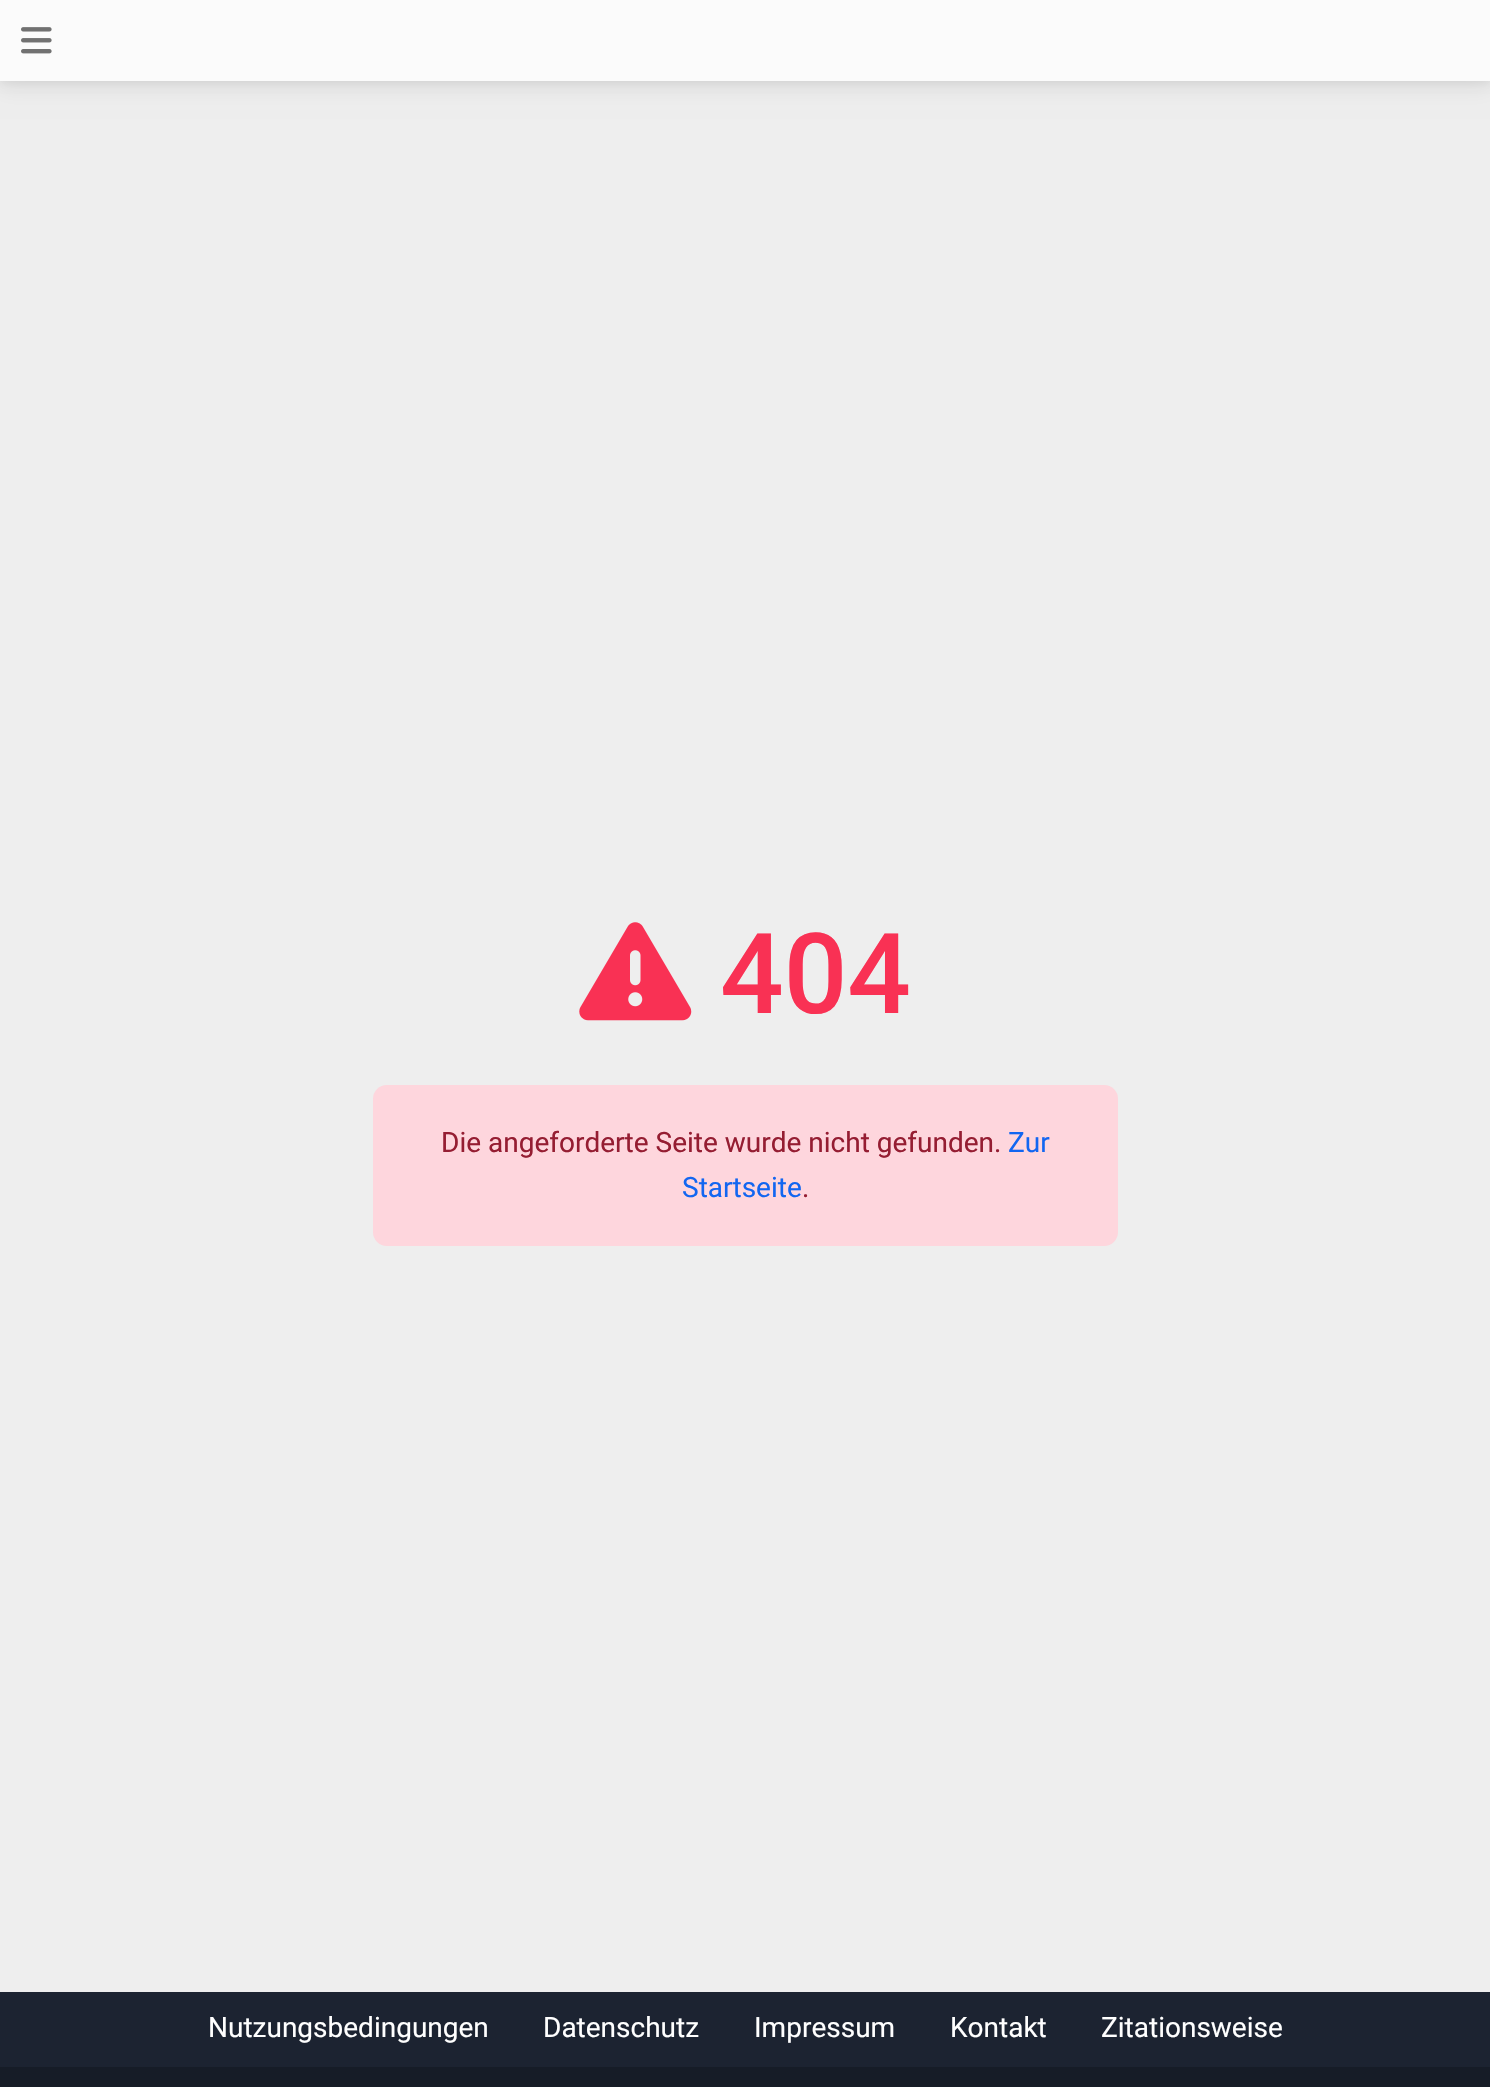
static SkFont makeFont(const char* family, int weight, float size, bool italic = false) {
  SkFontStyle style(weight, SkFontStyle::kNormal_Width,
    italic ? SkFontStyle::kItalic_Slant : SkFontStyle::kUpright_Slant);
  SkFont result(fontMgr->matchFamilyStyle(family, style), size);
  result.setSubpixel(true);
  return result;
}

static void text(SkCanvas* c, const char* s, float x, float y, const SkFont& font, SkColor color) {
  SkPaint ink(SkColor4f::FromColor(color));
  ink.setAntiAlias(true);
  c->drawString(s, x, y, font, ink);
}

static void box(SkCanvas* c, float l, float t, float r, float b, SkColor color) {
  SkPaint ink(SkColor4f::FromColor(color));
  ink.setAntiAlias(true);
  c->drawRect(SkRect::MakeLTRB(l, t, r, b), ink);
}

static void roundBox(SkCanvas* c, float l, float t, float r, float b, float radius, SkColor color) {
  SkPaint ink(SkColor4f::FromColor(color));
  ink.setAntiAlias(true);
  c->drawRoundRect(SkRect::MakeLTRB(l, t, r, b), radius, radius, ink);
}

static void picture(SkCanvas* c, const char* path, float l, float t, float r, float b) {
  auto image = SkImages::DeferredFromEncodedData(SkData::MakeFromFileName(path));
  c->drawImageRect(image, SkRect::MakeLTRB(l, t, r, b), SkSamplingOptions());
}

void draw(SkCanvas* c) {
  SkPaint paint;
  paint.setAntiAlias(true);
  c->clear(0xffeeeeee);
  paint.setColor(0x0d000000);
  paint.setMaskFilter(SkMaskFilter::MakeBlur(kNormal_SkBlurStyle, 3.5f));
  c->drawRect(SkRect::MakeLTRB(0, 4, 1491, 84), paint);
  paint.setMaskFilter(nullptr);
  paint.setColor(0x12000000);
  paint.setMaskFilter(SkMaskFilter::MakeBlur(kNormal_SkBlurStyle, 10.5f));
  c->drawRect(SkRect::MakeLTRB(0, 7, 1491, 88), paint);
  paint.setMaskFilter(nullptr);
  box(c, 0, 0, 1490, 81, 0xfffbfbfb);
  picture(c, "img_01.png", 21, 27, 52, 54);
  picture(c, "img_02.png", 579, 922, 692, 1021);
  SkFont face1 = makeFont("Roboto", 500, 112);
  text(c, "404", 720, 1013, face1, 0xfff93154);
  roundBox(c, 373, 1085, 1118, 1246, 14, 0xfffed6dd);
  SkFont face2 = makeFont("Roboto", 400, 28);
  text(c, "Die angeforderte Seite wurde nicht gefunden.", 441, 1152, face2, 0xff951d32);
  text(c, "Zur", 1008, 1152, face2, 0xff1266f1);
  text(c, "Startseite", 682, 1197, face2, 0xff1266f1);
  text(c, ".", 802, 1197, face2, 0xff951d32);
  box(c, 0, 1992, 1490, 2067, 0xff1c2331);
  text(c, "Nutzungsbedingungen", 208, 2037, face2, 0xffffffff);
  text(c, "Datenschutz", 543, 2037, face2, 0xffffffff);
  text(c, "Impressum", 754, 2037, face2, 0xffffffff);
  text(c, "Kontakt", 950, 2037, face2, 0xffffffff);
  text(c, "Zitationsweise", 1101, 2037, face2, 0xffffffff);
  box(c, 0, 2067, 1490, 2087, 0xff161c27);
}
